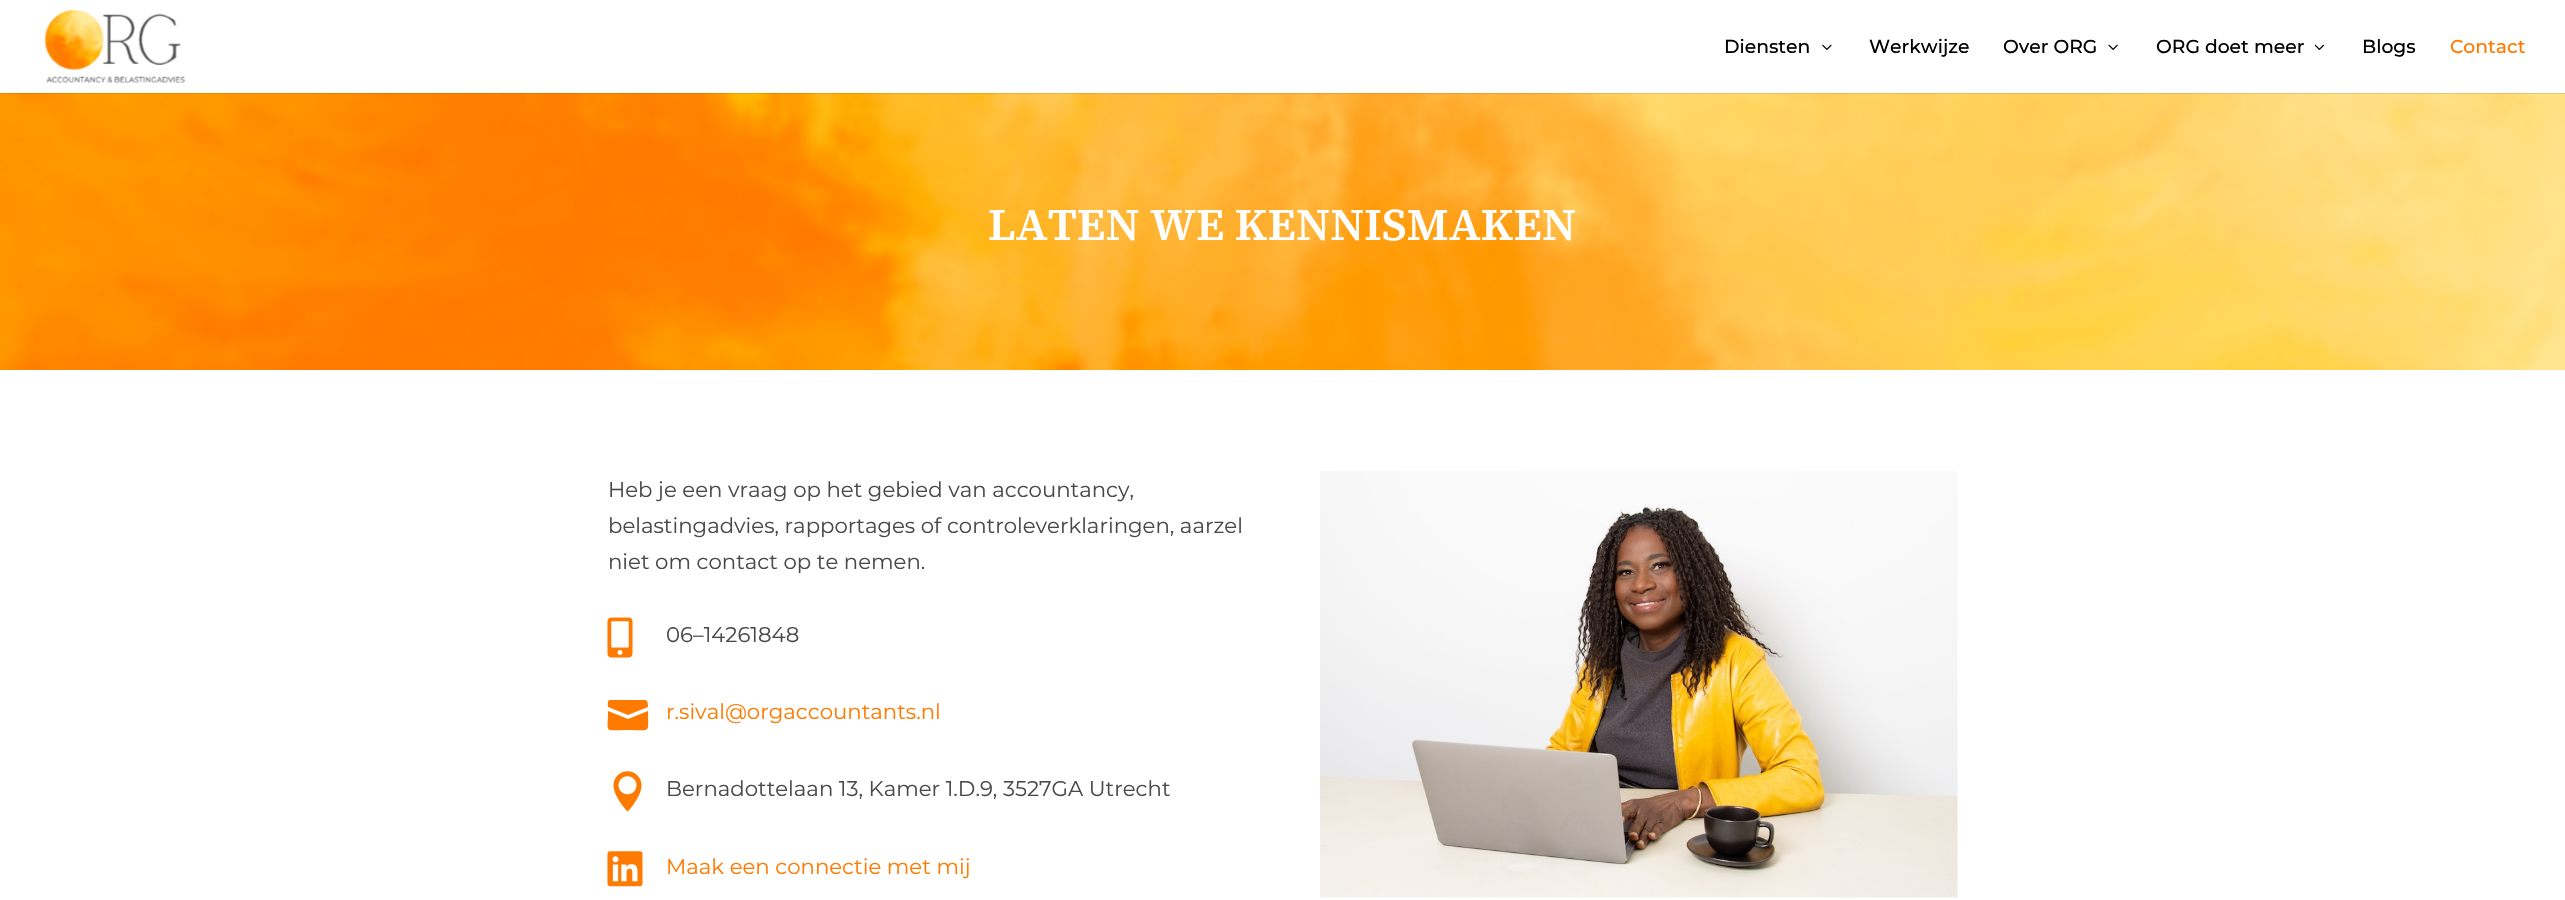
static SkFont makeFont(const char* family, int weight, float size, bool italic = false) {
  SkFontStyle style(weight, SkFontStyle::kNormal_Width,
    italic ? SkFontStyle::kItalic_Slant : SkFontStyle::kUpright_Slant);
  SkFont result(fontMgr->matchFamilyStyle(family, style), size);
  result.setSubpixel(true);
  return result;
}

static void text(SkCanvas* c, const char* s, float x, float y, const SkFont& font, SkColor color) {
  SkPaint ink(SkColor4f::FromColor(color));
  ink.setAntiAlias(true);
  c->drawString(s, x, y, font, ink);
}

static void box(SkCanvas* c, float l, float t, float r, float b, SkColor color) {
  SkPaint ink(SkColor4f::FromColor(color));
  ink.setAntiAlias(true);
  c->drawRect(SkRect::MakeLTRB(l, t, r, b), ink);
}

static void picture(SkCanvas* c, const char* path, float l, float t, float r, float b) {
  auto image = SkImages::DeferredFromEncodedData(SkData::MakeFromFileName(path));
  c->drawImageRect(image, SkRect::MakeLTRB(l, t, r, b), SkSamplingOptions());
}

void draw(SkCanvas* c) {
  SkPaint paint;
  paint.setAntiAlias(true);
  c->clear(0xffffffff);
  picture(c, "img_05.png", 0, 93, 2565, 370);
  box(c, 0, 93, 2565, 94, 0x1a000000);
  picture(c, "img_01.png", 44, 9, 185, 83);
  SkFont face1 = makeFont("Montserrat", 500, 18.75f);
  text(c, "Diensten", 1724, 53, face1, 0xff000000);
  picture(c, "img_02.png", 1822, 44, 1832, 50);
  text(c, "Werkwijze", 1869, 53, face1, 0xff000000);
  text(c, "Over ORG", 2003, 53, face1, 0xff000000);
  picture(c, "img_03.png", 2108, 44, 2118, 50);
  text(c, "ORG doet meer", 2156, 53, face1, 0xff000000);
  picture(c, "img_04.png", 2314, 44, 2324, 50);
  text(c, "Blogs", 2362, 53, face1, 0xff000000);
  text(c, "Contact", 2450, 53, face1, 0xffff7a00);
  SkFont face2 = makeFont("Source Serif 4", 600, 45);
  text(c, "LATEN WE KENNISMAKEN", 988, 240, face2, 0xffffffff);
  SkFont face3 = makeFont("Montserrat", 400, 21.25f);
  text(c, "Heb je een vraag op het gebied van accountancy,", 608, 497, face3, 0xff494949);
  text(c, "belastingadvies, rapportages of controleverklaringen, aarzel", 608, 533, face3, 0xff494949);
  text(c, "niet om contact op te nemen.", 608, 569, face3, 0xff494949);
  picture(c, "img_06.png", 607, 617, 633, 658);
  text(c, "06–14261848", 666, 642, face3, 0xff494949);
  paint.setColor(0xffff7a00);
  c->drawPath(SkPathBuilder().moveTo(645, 700).lineTo(610, 700).cubicTo(607, 700, 608, 705, 608, 707).lineTo(628, 715).lineTo(648, 707).cubicTo(648, 705, 648, 700, 645, 700).close().moveTo(608, 711).cubicTo(608, 734, 603, 730, 628, 730).cubicTo(652, 730, 648, 734, 648, 711).lineTo(628, 719).close().detach(), paint);
  text(c, "r.sival@orgaccountants.nl", 666, 719, face3, 0xffff7a00);
  picture(c, "img_07.png", 613, 771, 642, 812);
  text(c, "Bernadottelaan 13, Kamer 1.D.9, 3527GA Utrecht", 666, 796, face3, 0xff494949);
  picture(c, "img_08.png", 607, 851, 643, 887);
  text(c, "Maak een connectie met mij", 666, 874, face3, 0xffff7a00);
  picture(c, "img_09.png", 1320, 471, 1958, 898);
}
